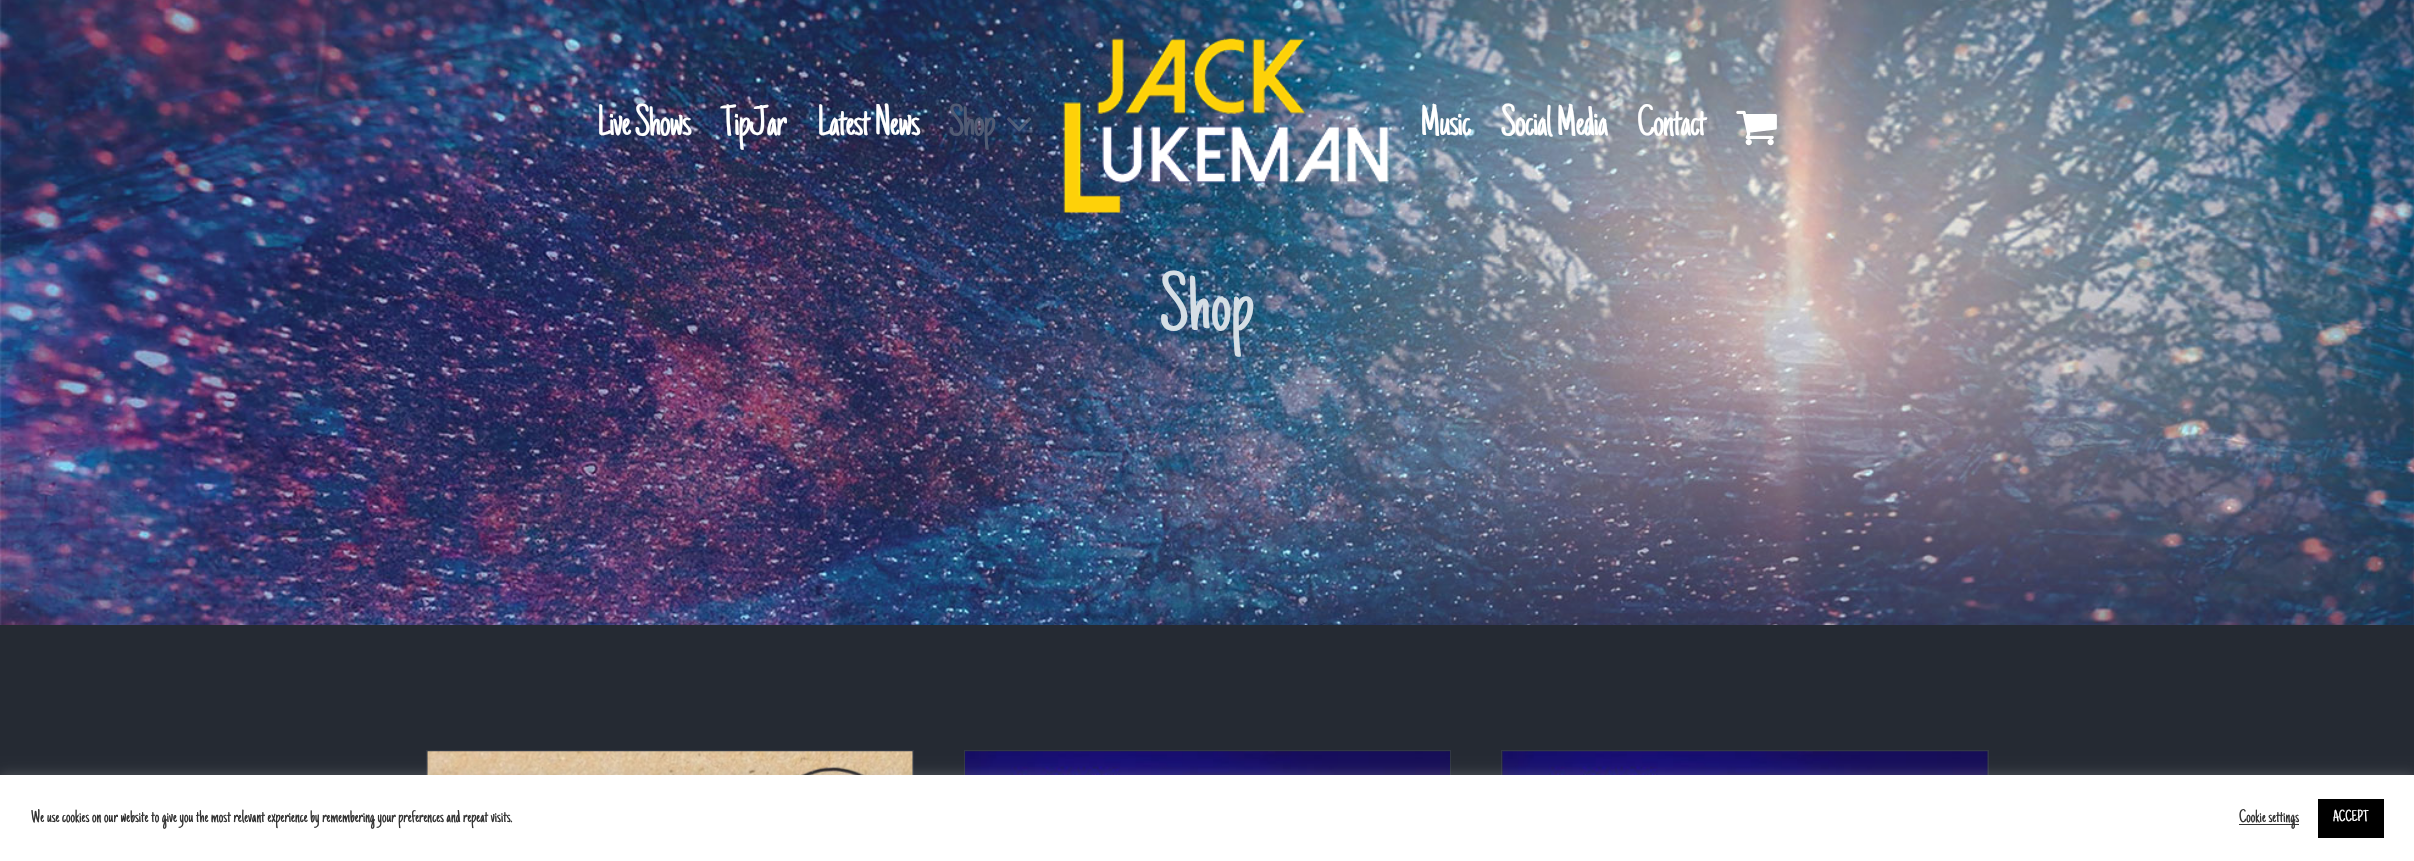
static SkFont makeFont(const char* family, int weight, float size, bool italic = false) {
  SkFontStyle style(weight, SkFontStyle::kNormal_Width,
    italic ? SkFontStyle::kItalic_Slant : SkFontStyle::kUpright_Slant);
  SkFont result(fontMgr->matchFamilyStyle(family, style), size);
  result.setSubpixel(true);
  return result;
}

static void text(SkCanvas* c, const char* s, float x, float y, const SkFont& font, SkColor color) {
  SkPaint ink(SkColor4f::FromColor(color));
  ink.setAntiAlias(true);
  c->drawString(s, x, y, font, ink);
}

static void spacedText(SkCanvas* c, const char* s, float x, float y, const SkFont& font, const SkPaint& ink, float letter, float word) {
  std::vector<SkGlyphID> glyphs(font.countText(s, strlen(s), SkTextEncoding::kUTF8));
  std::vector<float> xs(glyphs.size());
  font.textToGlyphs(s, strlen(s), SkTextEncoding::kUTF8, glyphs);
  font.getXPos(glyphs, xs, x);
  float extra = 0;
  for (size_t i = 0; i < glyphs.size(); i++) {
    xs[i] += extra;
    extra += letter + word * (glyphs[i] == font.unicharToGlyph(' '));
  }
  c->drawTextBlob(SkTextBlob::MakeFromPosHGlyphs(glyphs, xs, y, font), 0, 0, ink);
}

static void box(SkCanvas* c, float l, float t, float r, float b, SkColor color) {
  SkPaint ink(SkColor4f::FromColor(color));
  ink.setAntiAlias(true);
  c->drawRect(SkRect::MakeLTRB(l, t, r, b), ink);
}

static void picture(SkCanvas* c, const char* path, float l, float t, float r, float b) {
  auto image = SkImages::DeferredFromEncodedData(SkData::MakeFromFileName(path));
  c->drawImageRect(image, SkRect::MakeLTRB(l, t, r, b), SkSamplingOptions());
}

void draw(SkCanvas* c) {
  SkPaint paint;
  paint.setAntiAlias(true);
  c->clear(0xff252a33);
  picture(c, "img_04.png", 0, 0, 2414, 625);
  SkFont face1 = makeFont("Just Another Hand", 400, 44);
  paint.setColor(0xffffffff);
  spacedText(c, "Live Shows", 597, 135, face1, paint, -1.25f, 0);
  spacedText(c, "TipJar", 721, 135, face1, paint, -1.25f, 0);
  spacedText(c, "Latest News", 817, 135, face1, paint, -1.25f, 0);
  paint.setColor(0xff525c74);
  spacedText(c, "Shop", 949, 135, face1, paint, -1.25f, 0);
  picture(c, "img_01.png", 1007, 117, 1032, 132);
  picture(c, "img_02.png", 1063, 38, 1389, 213);
  paint.setColor(0xffffffff);
  spacedText(c, "Music", 1420, 135, face1, paint, -1.25f, 0);
  spacedText(c, "Social Media", 1501, 135, face1, paint, -1.25f, 0);
  spacedText(c, "Contact", 1637, 135, face1, paint, -1.25f, 0);
  picture(c, "img_03.png", 1736, 110, 1777, 146);
  SkFont face2 = makeFont("Just Another Hand", 400, 82);
  text(c, "Shop", 1160, 329, face2, 0xffd5dee5);
  box(c, 428, 751, 913, 775, 0xff323844);
  box(c, 426, 750, 914, 751, 0xff323844);
  box(c, 913, 750, 914, 775, 0xff323844);
  box(c, 426, 750, 427, 775, 0xff323844);
  picture(c, "img_05.png", 427, 751, 913, 775);
  box(c, 964, 750, 1451, 751, 0xff323844);
  box(c, 1450, 750, 1451, 775, 0xff323844);
  box(c, 964, 750, 965, 775, 0xff323844);
  picture(c, "img_06.png", 965, 751, 1450, 775);
  box(c, 1503, 751, 1988, 775, 0xff323844);
  box(c, 1501, 750, 1989, 751, 0xff323844);
  box(c, 1988, 750, 1989, 775, 0xff323844);
  box(c, 1501, 750, 1502, 775, 0xff323844);
  picture(c, "img_07.png", 1502, 751, 1988, 775);
  paint.setColor(0x4dacabab);
  paint.setMaskFilter(SkMaskFilter::MakeBlur(kNormal_SkBlurStyle, 6));
  c->drawRect(SkRect::MakeLTRB(0, 774, 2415, 860), paint);
  paint.setMaskFilter(nullptr);
  box(c, 0, 775, 2414, 861, 0xffffffff);
  SkFont face3 = makeFont("Just Another Hand", 400, 18.3f);
  text(c, "We use cookies on our website to give you the most relevant experience by remembering your preferences and repeat visits.", 31, 822, face3, 0xff333333);
  box(c, 2239, 824, 2299, 825, 0xff333333);
  text(c, "Cookie settings", 2239, 822, face3, 0xff333333);
  box(c, 2318, 799, 2384, 838, 0xff000000);
  SkFont face4 = makeFont("Just Another Hand", 400, 16);
  text(c, "ACCEPT", 2333, 821, face4, 0xffffffff);
}
